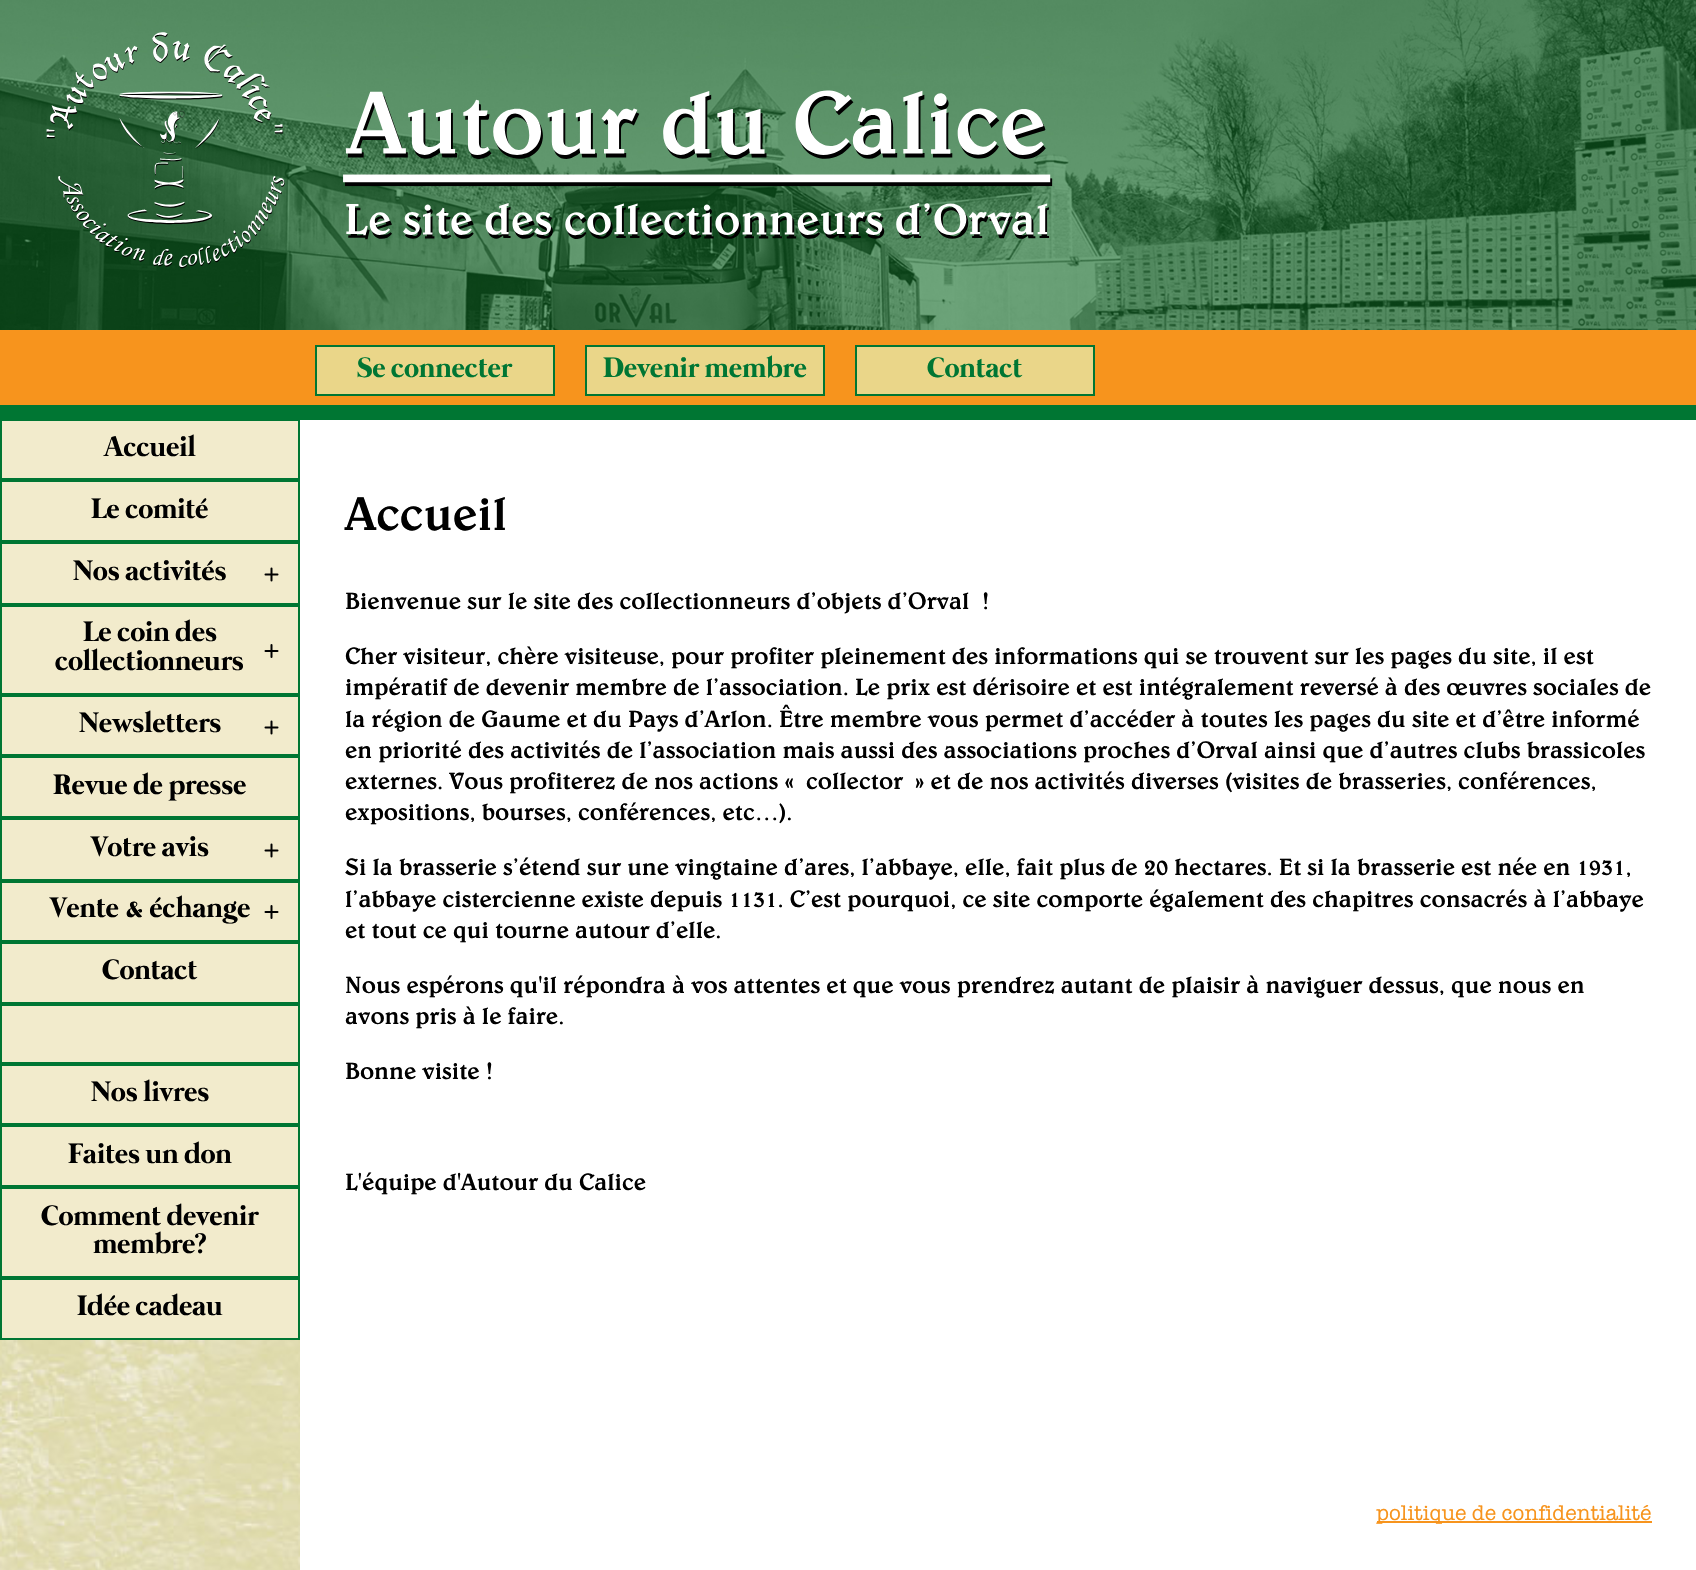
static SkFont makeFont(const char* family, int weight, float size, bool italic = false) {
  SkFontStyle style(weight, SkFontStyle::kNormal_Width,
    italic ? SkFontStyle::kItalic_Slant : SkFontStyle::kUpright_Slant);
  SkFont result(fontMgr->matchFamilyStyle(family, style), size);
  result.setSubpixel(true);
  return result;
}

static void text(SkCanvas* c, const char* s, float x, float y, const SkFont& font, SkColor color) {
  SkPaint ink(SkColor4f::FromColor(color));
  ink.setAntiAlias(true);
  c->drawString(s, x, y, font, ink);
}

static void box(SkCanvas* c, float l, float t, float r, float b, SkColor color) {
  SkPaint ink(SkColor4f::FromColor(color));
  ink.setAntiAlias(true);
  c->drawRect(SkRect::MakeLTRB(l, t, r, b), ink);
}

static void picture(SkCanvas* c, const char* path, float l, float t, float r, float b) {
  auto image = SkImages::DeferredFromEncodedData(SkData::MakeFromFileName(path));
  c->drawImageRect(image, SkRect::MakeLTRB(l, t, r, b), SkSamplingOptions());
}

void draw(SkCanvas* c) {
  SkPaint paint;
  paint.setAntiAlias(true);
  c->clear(0xffffffff);
  picture(c, "img_01.png", 0, 0, 1696, 330);
  picture(c, "img_02.png", 46, 32, 285, 269);
  picture(c, "img_03.png", 343, 90, 1053, 240);
  box(c, 0, 330, 1696, 405, 0xfff7941d);
  box(c, 0, 405, 1696, 420, 0xff007633);
  paint.setColor(0xffead689);
  c->drawRect(SkRect::MakeLTRB(316, 346, 554, 395), paint);
  paint.setStyle(SkPaint::kStroke_Style);
  paint.setStrokeWidth(2);
  paint.setColor(0xff007633);
  c->drawRect(SkRect::MakeLTRB(316, 346, 554, 395), paint);
  SkFont face1 = makeFont("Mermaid", 700, 28.75f);
  text(c, "Se connecter", 357, 377, face1, 0xff007633);
  paint.setStyle(SkPaint::kFill_Style);
  paint.setColor(0xffead689);
  c->drawRect(SkRect::MakeLTRB(586, 346, 824, 395), paint);
  paint.setStyle(SkPaint::kStroke_Style);
  paint.setColor(0xff007633);
  c->drawRect(SkRect::MakeLTRB(586, 346, 824, 395), paint);
  text(c, "Devenir membre", 603, 377, face1, 0xff007633);
  paint.setStyle(SkPaint::kFill_Style);
  paint.setColor(0xffead689);
  c->drawRect(SkRect::MakeLTRB(856, 346, 1094, 395), paint);
  paint.setStyle(SkPaint::kStroke_Style);
  paint.setColor(0xff007633);
  c->drawRect(SkRect::MakeLTRB(856, 346, 1094, 395), paint);
  text(c, "Contact", 927, 377, face1, 0xff007633);
  picture(c, "img_04.png", 0, 1340, 300, 1570);
  paint.setStyle(SkPaint::kFill_Style);
  paint.setColor(0xfff2ebcc);
  c->drawRect(SkRect::MakeLTRB(1, 420, 299, 479), paint);
  paint.setStyle(SkPaint::kStroke_Style);
  paint.setColor(0xff007633);
  c->drawRect(SkRect::MakeLTRB(1, 420, 299, 479), paint);
  text(c, "Accueil", 104, 456, face1, 0xff000000);
  paint.setStyle(SkPaint::kFill_Style);
  paint.setColor(0xfff2ebcc);
  c->drawRect(SkRect::MakeLTRB(1, 481, 299, 541), paint);
  paint.setStyle(SkPaint::kStroke_Style);
  paint.setColor(0xff007633);
  c->drawRect(SkRect::MakeLTRB(1, 481, 299, 541), paint);
  text(c, "Le comité", 91, 518, face1, 0xff000000);
  paint.setStyle(SkPaint::kFill_Style);
  paint.setColor(0xfff2ebcc);
  c->drawRect(SkRect::MakeLTRB(1, 543, 299, 604), paint);
  paint.setStyle(SkPaint::kStroke_Style);
  paint.setColor(0xff007633);
  c->drawRect(SkRect::MakeLTRB(1, 543, 299, 604), paint);
  text(c, "Nos activités", 73, 580, face1, 0xff000000);
  paint.setStrokeCap(SkPaint::kRound_Cap);
  paint.setStrokeJoin(SkPaint::kRound_Join);
  paint.setColor(0xff000000);
  c->drawPath(SkPathBuilder().moveTo(271.5f, 568.5f).lineTo(271.5f, 574.5f).moveTo(271.5f, 574.5f).lineTo(271.5f, 580.5f).moveTo(271.5f, 574.5f).lineTo(277.5f, 574.5f).moveTo(271.5f, 574.5f).lineTo(265.5f, 574.5f).detach(), paint);
  paint.setStyle(SkPaint::kFill_Style);
  paint.setColor(0xfff2ebcc);
  c->drawRect(SkRect::MakeLTRB(1, 606, 299, 694), paint);
  paint.setStyle(SkPaint::kStroke_Style);
  paint.setStrokeCap(SkPaint::kButt_Cap);
  paint.setStrokeJoin(SkPaint::kMiter_Join);
  paint.setColor(0xff007633);
  c->drawRect(SkRect::MakeLTRB(1, 606, 299, 694), paint);
  text(c, "Le coin des", 83, 641, face1, 0xff000000);
  text(c, "collectionneurs", 55, 670, face1, 0xff000000);
  paint.setStrokeCap(SkPaint::kRound_Cap);
  paint.setStrokeJoin(SkPaint::kRound_Join);
  paint.setColor(0xff000000);
  c->drawPath(SkPathBuilder().moveTo(271.5f, 645).lineTo(271.5f, 651).moveTo(271.5f, 651).lineTo(271.5f, 657).moveTo(271.5f, 651).lineTo(277.5f, 651).moveTo(271.5f, 651).lineTo(265.5f, 651).detach(), paint);
  paint.setStyle(SkPaint::kFill_Style);
  paint.setColor(0xfff2ebcc);
  c->drawRect(SkRect::MakeLTRB(1, 696, 299, 755), paint);
  paint.setStyle(SkPaint::kStroke_Style);
  paint.setStrokeCap(SkPaint::kButt_Cap);
  paint.setStrokeJoin(SkPaint::kMiter_Join);
  paint.setColor(0xff007633);
  c->drawRect(SkRect::MakeLTRB(1, 696, 299, 755), paint);
  text(c, "Newsletters", 79, 732, face1, 0xff000000);
  paint.setStrokeCap(SkPaint::kRound_Cap);
  paint.setStrokeJoin(SkPaint::kRound_Join);
  paint.setColor(0xff000000);
  c->drawPath(SkPathBuilder().moveTo(271.5f, 721.5f).lineTo(271.5f, 727.5f).moveTo(271.5f, 727.5f).lineTo(271.5f, 733.5f).moveTo(271.5f, 727.5f).lineTo(277.5f, 727.5f).moveTo(271.5f, 727.5f).lineTo(265.5f, 727.5f).detach(), paint);
  paint.setStyle(SkPaint::kFill_Style);
  paint.setColor(0xfff2ebcc);
  c->drawRect(SkRect::MakeLTRB(1, 757, 299, 817), paint);
  paint.setStyle(SkPaint::kStroke_Style);
  paint.setStrokeCap(SkPaint::kButt_Cap);
  paint.setStrokeJoin(SkPaint::kMiter_Join);
  paint.setColor(0xff007633);
  c->drawRect(SkRect::MakeLTRB(1, 757, 299, 817), paint);
  text(c, "Revue de presse", 53, 794, face1, 0xff000000);
  paint.setStyle(SkPaint::kFill_Style);
  paint.setColor(0xfff2ebcc);
  c->drawRect(SkRect::MakeLTRB(1, 819, 299, 880), paint);
  paint.setStyle(SkPaint::kStroke_Style);
  paint.setColor(0xff007633);
  c->drawRect(SkRect::MakeLTRB(1, 819, 299, 880), paint);
  text(c, "Votre avis", 91, 856, face1, 0xff000000);
  paint.setStrokeCap(SkPaint::kRound_Cap);
  paint.setStrokeJoin(SkPaint::kRound_Join);
  paint.setColor(0xff000000);
  c->drawPath(SkPathBuilder().moveTo(271.5f, 844.5f).lineTo(271.5f, 850.5f).moveTo(271.5f, 850.5f).lineTo(271.5f, 856.5f).moveTo(271.5f, 850.5f).lineTo(277.5f, 850.5f).moveTo(271.5f, 850.5f).lineTo(265.5f, 850.5f).detach(), paint);
  paint.setStyle(SkPaint::kFill_Style);
  paint.setColor(0xfff2ebcc);
  c->drawRect(SkRect::MakeLTRB(1, 882, 299, 941), paint);
  paint.setStyle(SkPaint::kStroke_Style);
  paint.setStrokeCap(SkPaint::kButt_Cap);
  paint.setStrokeJoin(SkPaint::kMiter_Join);
  paint.setColor(0xff007633);
  c->drawRect(SkRect::MakeLTRB(1, 882, 299, 941), paint);
  text(c, "Vente & échange", 50, 917, face1, 0xff000000);
  paint.setStrokeCap(SkPaint::kRound_Cap);
  paint.setStrokeJoin(SkPaint::kRound_Join);
  paint.setColor(0xff000000);
  c->drawPath(SkPathBuilder().moveTo(271.5f, 906).lineTo(271.5f, 912).moveTo(271.5f, 912).lineTo(271.5f, 918).moveTo(271.5f, 912).lineTo(277.5f, 912).moveTo(271.5f, 912).lineTo(265.5f, 912).detach(), paint);
  paint.setStyle(SkPaint::kFill_Style);
  paint.setColor(0xfff2ebcc);
  c->drawRect(SkRect::MakeLTRB(1, 943, 299, 1003), paint);
  paint.setStyle(SkPaint::kStroke_Style);
  paint.setStrokeCap(SkPaint::kButt_Cap);
  paint.setStrokeJoin(SkPaint::kMiter_Join);
  paint.setColor(0xff007633);
  c->drawRect(SkRect::MakeLTRB(1, 943, 299, 1003), paint);
  text(c, "Contact", 102, 979, face1, 0xff000000);
  paint.setStyle(SkPaint::kFill_Style);
  paint.setColor(0xfff2ebcc);
  c->drawRect(SkRect::MakeLTRB(1, 1005, 299, 1063), paint);
  paint.setStyle(SkPaint::kStroke_Style);
  paint.setColor(0xff007633);
  c->drawRect(SkRect::MakeLTRB(1, 1005, 299, 1063), paint);
  paint.setStyle(SkPaint::kFill_Style);
  paint.setColor(0xfff2ebcc);
  c->drawRect(SkRect::MakeLTRB(1, 1065, 299, 1124), paint);
  paint.setStyle(SkPaint::kStroke_Style);
  paint.setColor(0xff007633);
  c->drawRect(SkRect::MakeLTRB(1, 1065, 299, 1124), paint);
  text(c, "Nos livres", 91, 1101, face1, 0xff000000);
  paint.setStyle(SkPaint::kFill_Style);
  paint.setColor(0xfff2ebcc);
  c->drawRect(SkRect::MakeLTRB(1, 1126, 299, 1186), paint);
  paint.setStyle(SkPaint::kStroke_Style);
  paint.setColor(0xff007633);
  c->drawRect(SkRect::MakeLTRB(1, 1126, 299, 1186), paint);
  text(c, "Faites un don", 68, 1163, face1, 0xff000000);
  paint.setStyle(SkPaint::kFill_Style);
  paint.setColor(0xfff2ebcc);
  c->drawRect(SkRect::MakeLTRB(1, 1188, 299, 1277), paint);
  paint.setStyle(SkPaint::kStroke_Style);
  paint.setColor(0xff007633);
  c->drawRect(SkRect::MakeLTRB(1, 1188, 299, 1277), paint);
  text(c, "Comment devenir", 41, 1225, face1, 0xff000000);
  text(c, "membre?", 93, 1253, face1, 0xff000000);
  paint.setStyle(SkPaint::kFill_Style);
  paint.setColor(0xfff2ebcc);
  c->drawRect(SkRect::MakeLTRB(1, 1279, 299, 1339), paint);
  paint.setStyle(SkPaint::kStroke_Style);
  paint.setColor(0xff007633);
  c->drawRect(SkRect::MakeLTRB(1, 1279, 299, 1339), paint);
  text(c, "Idée cadeau", 77, 1315, face1, 0xff000000);
  SkFont face2 = makeFont("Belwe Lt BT", 500, 48);
  text(c, "Accueil", 345, 530, face2, 0xff000000);
  SkFont face3 = makeFont("Belwe Lt BT", 500, 24);
  text(c, "Bienvenue sur le site des collectionneurs d’objets d’Orval", 345, 609, face3, 0xff000000);
  text(c, "!", 982, 609, face3, 0xff000000);
  text(c, "Cher visiteur, chère visiteuse, pour profiter pleinement des informations qui se trouvent sur les pages du site, il est", 345, 664, face3, 0xff000000);
  text(c, "impératif de devenir membre de l’association. Le prix est dérisoire et est intégralement reversé à des œuvres sociales de", 345, 695, face3, 0xff000000);
  text(c, "la région de Gaume et du Pays d’Arlon. Être membre vous permet d’accéder à toutes les pages du site et d’être informé", 345, 727, face3, 0xff000000);
  text(c, "en priorité des activités de l’association mais aussi des associations proches d’Orval ainsi que d’autres clubs brassicoles", 345, 758, face3, 0xff000000);
  text(c, "externes. Vous profiterez de nos actions «", 345, 789, face3, 0xff000000);
  text(c, "collector", 806, 789, face3, 0xff000000);
  text(c, "» et de nos activités diverses (visites de brasseries, conférences,", 915, 789, face3, 0xff000000);
  text(c, "expositions, bourses, conférences, etc…).", 345, 820, face3, 0xff000000);
  text(c, "Si la brasserie s’étend sur une vingtaine d’ares, l’abbaye, elle, fait plus de 20 hectares. Et si la brasserie est née en 1931,", 345, 875, face3, 0xff000000);
  text(c, "l’abbaye cistercienne existe depuis 1131. C’est pourquoi, ce site comporte également des chapitres consacrés à l’abbaye", 345, 907, face3, 0xff000000);
  text(c, "et tout ce qui tourne autour d’elle.", 345, 938, face3, 0xff000000);
  text(c, "Nous espérons qu'il répondra à vos attentes et que vous prendrez autant de plaisir à naviguer dessus, que nous en", 345, 993, face3, 0xff000000);
  text(c, "avons pris à le faire.", 345, 1024, face3, 0xff000000);
  text(c, "Bonne visite !", 345, 1079, face3, 0xff000000);
  text(c, "L'équipe d'Autour du Calice", 345, 1190, face3, 0xff000000);
  box(c, 1377, 1521, 1652, 1523, 0xfff7941d);
  SkFont face4 = makeFont("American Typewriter", 400, 21.6f);
  text(c, "politique de confidentialité", 1376, 1520, face4, 0xfff7941d);
}
